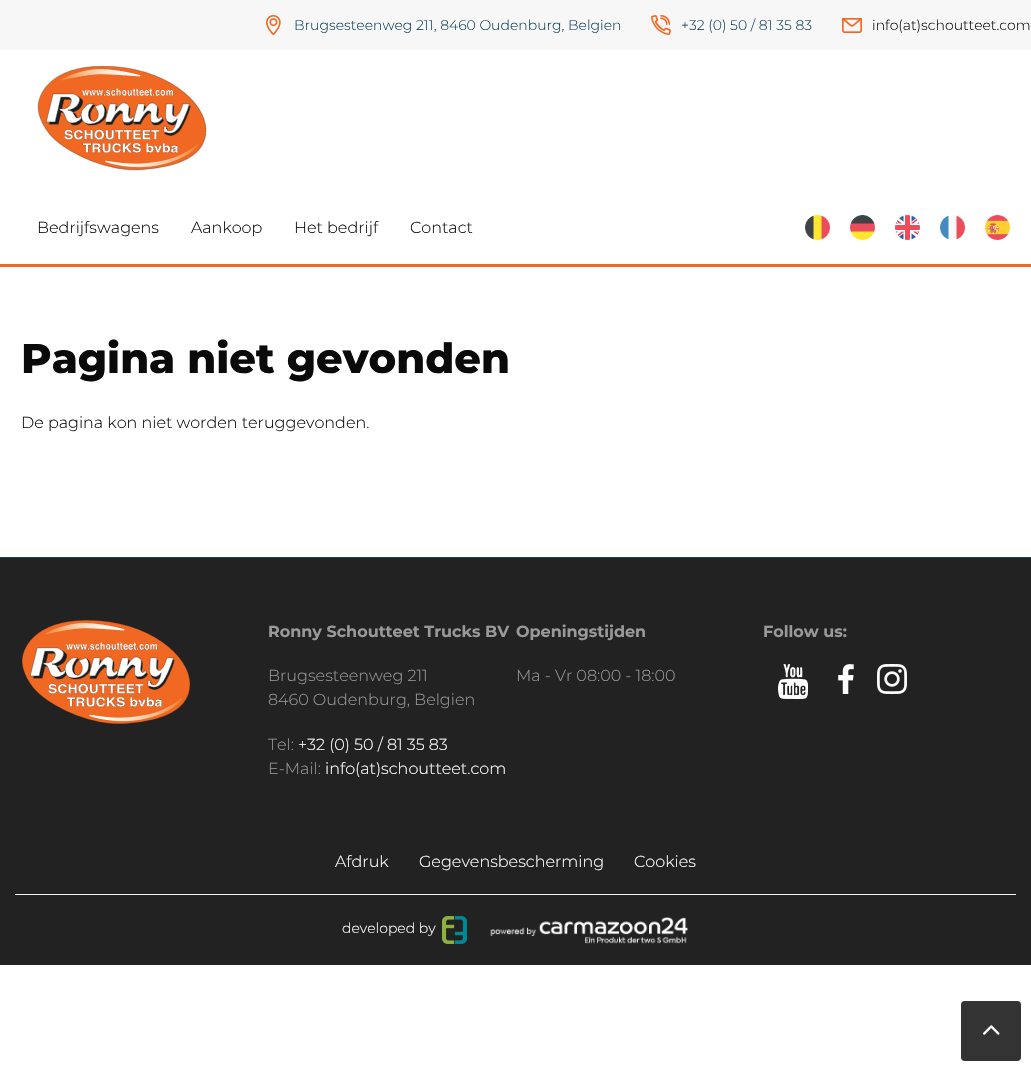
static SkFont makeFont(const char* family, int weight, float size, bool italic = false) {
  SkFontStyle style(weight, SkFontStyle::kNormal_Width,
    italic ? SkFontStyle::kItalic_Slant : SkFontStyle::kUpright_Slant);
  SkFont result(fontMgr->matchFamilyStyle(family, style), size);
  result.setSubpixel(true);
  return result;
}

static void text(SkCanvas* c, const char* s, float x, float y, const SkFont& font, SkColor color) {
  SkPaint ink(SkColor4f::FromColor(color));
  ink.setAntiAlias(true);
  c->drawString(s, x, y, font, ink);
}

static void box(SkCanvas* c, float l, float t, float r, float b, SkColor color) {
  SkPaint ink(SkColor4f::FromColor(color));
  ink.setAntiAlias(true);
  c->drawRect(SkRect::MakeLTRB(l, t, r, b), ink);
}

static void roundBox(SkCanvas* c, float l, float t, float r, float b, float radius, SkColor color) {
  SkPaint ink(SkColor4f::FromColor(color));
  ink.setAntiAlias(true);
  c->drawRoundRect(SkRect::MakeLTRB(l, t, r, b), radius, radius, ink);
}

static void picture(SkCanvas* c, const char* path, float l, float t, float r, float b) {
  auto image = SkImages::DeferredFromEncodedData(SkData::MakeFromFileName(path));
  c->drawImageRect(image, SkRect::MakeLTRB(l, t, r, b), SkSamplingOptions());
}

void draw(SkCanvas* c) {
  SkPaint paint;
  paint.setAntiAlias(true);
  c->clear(0xffffffff);
  box(c, 0, 0, 1031, 50, 0xfff7f7f7);
  picture(c, "img_01.png", 266, 15, 281, 35);
  SkFont face1 = makeFont("Montserrat", 300, 14);
  text(c, "Brugsesteenweg 211, 8460 Oudenburg, Belgien", 294, 30, face1, 0xff13445e);
  picture(c, "img_02.png", 651, 15, 671, 35);
  text(c, "+32 (0) 50 / 81 35 83", 681, 30, face1, 0xff13445e);
  picture(c, "img_03.png", 842, 18, 862, 33);
  text(c, "info(at)schoutteet.com", 872, 30, face1, 0xff0a0a0a);
  picture(c, "img_04.png", 37, 66, 207, 171);
  box(c, 0, 264, 1031, 267, 0xfff16823);
  SkFont face2 = makeFont("Montserrat", 300, 16);
  text(c, "Bedrijfswagens", 37, 233, face2, 0xff0a0a0a);
  text(c, "Aankoop", 191, 233, face2, 0xff0a0a0a);
  text(c, "Het bedrijf", 294, 233, face2, 0xff0a0a0a);
  text(c, "Contact", 410, 233, face2, 0xff0a0a0a);
  picture(c, "img_05.png", 805, 215, 830, 240);
  picture(c, "img_06.png", 850, 215, 875, 240);
  picture(c, "img_07.png", 895, 215, 920, 240);
  picture(c, "img_08.png", 940, 215, 965, 240);
  picture(c, "img_09.png", 985, 215, 1010, 240);
  SkFont face3 = makeFont("Montserrat", 800, 41.6f);
  text(c, "Pagina niet gevonden", 21, 373, face3, 0xff0a0a0a);
  text(c, "De pagina kon niet worden teruggevonden.", 21, 428, face2, 0xff0a0a0a);
  box(c, 0, 558, 1031, 965, 0xff222222);
  box(c, 0, 557, 1031, 558, 0xff13445e);
  picture(c, "img_10.png", 22, 620, 190, 724);
  SkFont face4 = makeFont("Montserrat", 700, 16);
  text(c, "Ronny Schoutteet Trucks BV", 268, 637, face4, 0xff999999);
  text(c, "Brugsesteenweg 211", 268, 681, face2, 0xff999999);
  text(c, "8460 Oudenburg, Belgien", 268, 705, face2, 0xff999999);
  text(c, "Tel:", 268, 750, face2, 0xff999999);
  text(c, "+32 (0) 50 / 81 35 83", 298, 750, face2, 0xffffffff);
  text(c, "E-Mail:", 268, 774, face2, 0xff999999);
  text(c, "info(at)schoutteet.com", 325, 774, face2, 0xffffffff);
  text(c, "Openingstijden", 516, 637, face4, 0xff999999);
  text(c, "Ma - Vr 08:00 - 18:00", 516, 681, face2, 0xff999999);
  text(c, "Follow us:", 763, 637, face4, 0xff999999);
  picture(c, "img_11.png", 778, 664, 808, 699);
  picture(c, "img_12.png", 838, 664, 854, 694);
  picture(c, "img_13.png", 877, 664, 907, 694);
  text(c, "Afdruk", 335, 867, face2, 0xffffffff);
  text(c, "Gegevensbescherming", 419, 867, face2, 0xffffffff);
  text(c, "Cookies", 634, 867, face2, 0xffffffff);
  box(c, 15, 894, 1016, 895, 0xfff5f5f5);
  text(c, "developed by", 342, 933, face1, 0xffffffff);
  picture(c, "img_14.png", 442, 916, 467, 944);
  picture(c, "img_15.png", 490, 917, 688, 944);
  roundBox(c, 961, 1001, 1021, 1061, 4, 0xff333333);
  picture(c, "img_16.png", 983, 1025, 1000, 1035);
}
